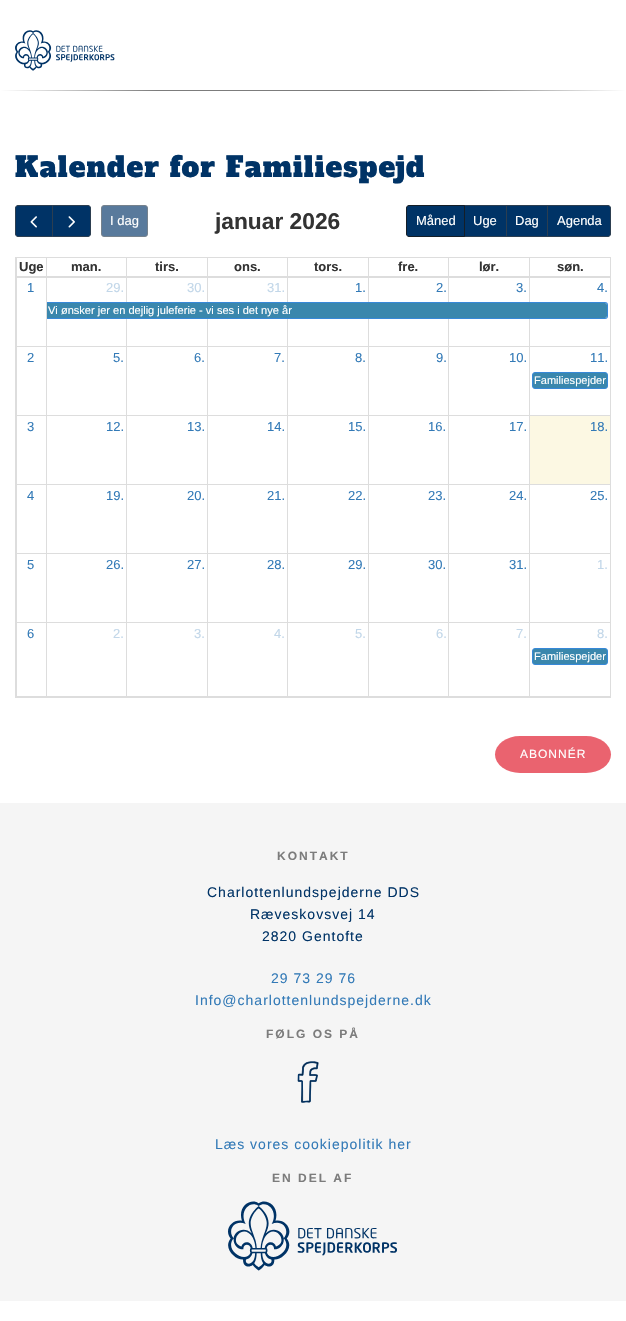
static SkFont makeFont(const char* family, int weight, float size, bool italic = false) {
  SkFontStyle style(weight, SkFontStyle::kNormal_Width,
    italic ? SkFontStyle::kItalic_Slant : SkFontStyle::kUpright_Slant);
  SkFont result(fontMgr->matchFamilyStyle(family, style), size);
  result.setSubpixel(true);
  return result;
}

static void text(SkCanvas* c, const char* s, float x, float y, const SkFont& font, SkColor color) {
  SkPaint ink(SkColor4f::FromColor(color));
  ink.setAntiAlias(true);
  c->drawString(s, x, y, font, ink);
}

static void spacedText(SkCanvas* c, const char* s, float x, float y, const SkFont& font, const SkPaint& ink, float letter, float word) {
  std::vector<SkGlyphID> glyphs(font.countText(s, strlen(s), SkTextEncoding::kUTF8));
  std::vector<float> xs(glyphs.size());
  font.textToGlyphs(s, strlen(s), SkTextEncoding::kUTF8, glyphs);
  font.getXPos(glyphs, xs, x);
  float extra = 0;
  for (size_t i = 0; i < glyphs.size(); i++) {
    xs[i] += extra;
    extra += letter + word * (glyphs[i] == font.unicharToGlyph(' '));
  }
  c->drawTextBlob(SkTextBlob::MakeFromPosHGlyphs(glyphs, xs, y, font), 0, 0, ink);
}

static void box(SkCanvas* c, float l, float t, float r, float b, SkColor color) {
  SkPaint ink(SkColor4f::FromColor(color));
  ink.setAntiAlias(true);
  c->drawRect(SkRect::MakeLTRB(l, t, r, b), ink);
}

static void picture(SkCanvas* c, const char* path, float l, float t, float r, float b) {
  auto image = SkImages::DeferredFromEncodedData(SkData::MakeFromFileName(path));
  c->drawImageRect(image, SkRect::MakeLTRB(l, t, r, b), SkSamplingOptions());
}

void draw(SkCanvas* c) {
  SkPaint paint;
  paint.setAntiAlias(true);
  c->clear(0xffffffff);
  picture(c, "img_01.png", 15, 30, 115, 71);
  {
    const SkColor colors[] = {0xffffffff, 0xff7c7c7c, 0xff7c7c7c, 0xffffffff};
    const float stops[] = {0, 0.25f, 0.75f, 1};
    const SkPoint ends[] = {{626, 91}, {0, 90}};
    paint.setShader(SkGradientShader::MakeLinear(ends, colors, stops, 4, SkTileMode::kClamp));
    paint.setAlpha(255);
  }
  c->drawRect(SkRect::MakeLTRB(0, 90, 626, 91), paint);
  SkFont face1 = makeFont("Alfa Slab One", 400, 28);
  paint.setShader(nullptr);
  paint.setColor(0xff003366);
  spacedText(c, "Kalender for Familiespejd", 15, 177, face1, paint, 1.1f, 0);
  c->drawPath(SkPathBuilder().moveTo(18, 205.5f).lineTo(52.5f, 205.5f).lineTo(52.5f, 236.5f).lineTo(18, 236.5f).cubicTo(16.5f, 236.5f, 15.5f, 235.5f, 15.5f, 234).lineTo(15.5f, 208).cubicTo(15.5f, 206.5f, 16.5f, 205.5f, 18, 205.5f).close().detach(), paint);
  paint.setStyle(SkPaint::kStroke_Style);
  paint.setStrokeWidth(1);
  paint.setColor(0xff2c3e50);
  c->drawPath(SkPathBuilder().moveTo(18, 205.5f).lineTo(52.5f, 205.5f).lineTo(52.5f, 236.5f).lineTo(18, 236.5f).cubicTo(16.5f, 236.5f, 15.5f, 235.5f, 15.5f, 234).lineTo(15.5f, 208).cubicTo(15.5f, 206.5f, 16.5f, 205.5f, 18, 205.5f).close().detach(), paint);
  picture(c, "img_02.png", 30, 216, 37, 228);
  paint.setStyle(SkPaint::kFill_Style);
  paint.setColor(0xff003366);
  c->drawPath(SkPathBuilder().moveTo(52.5f, 205.5f).lineTo(88, 205.5f).cubicTo(89.5f, 205.5f, 90.5f, 206.5f, 90.5f, 208).lineTo(90.5f, 234).cubicTo(90.5f, 235.5f, 89.5f, 236.5f, 88, 236.5f).lineTo(52.5f, 236.5f).close().detach(), paint);
  paint.setStyle(SkPaint::kStroke_Style);
  paint.setColor(0xff2c3e50);
  c->drawPath(SkPathBuilder().moveTo(52.5f, 205.5f).lineTo(88, 205.5f).cubicTo(89.5f, 205.5f, 90.5f, 206.5f, 90.5f, 208).lineTo(90.5f, 234).cubicTo(90.5f, 235.5f, 89.5f, 236.5f, 88, 236.5f).lineTo(52.5f, 236.5f).close().detach(), paint);
  picture(c, "img_03.png", 68, 216, 75, 228);
  paint.setStyle(SkPaint::kFill_Style);
  paint.setColor(0xff597a9c);
  c->drawRoundRect(SkRect::MakeLTRB(101.5f, 205.5f, 147.5f, 236.5f), 2.5f, 2.5f, paint);
  paint.setStyle(SkPaint::kStroke_Style);
  paint.setColor(0xff76828d);
  c->drawRoundRect(SkRect::MakeLTRB(101.5f, 205.5f, 147.5f, 236.5f), 2.5f, 2.5f, paint);
  SkFont face2 = makeFont("Liberation Sans", 400, 13);
  text(c, "I dag", 110, 225, face2, 0xffffffff);
  SkFont face3 = makeFont("Liberation Sans", 700, 22.75f);
  text(c, "januar 2026", 215, 229, face3, 0xff333333);
  paint.setStyle(SkPaint::kFill_Style);
  paint.setColor(0xff003366);
  c->drawRect(SkRect::MakeLTRB(464.5f, 205.5f, 506.5f, 236.5f), paint);
  paint.setStyle(SkPaint::kStroke_Style);
  paint.setColor(0xff2c3e50);
  c->drawRect(SkRect::MakeLTRB(464.5f, 205.5f, 506.5f, 236.5f), paint);
  paint.setStyle(SkPaint::kFill_Style);
  paint.setColor(0xff003366);
  c->drawPath(SkPathBuilder().moveTo(409, 205.5f).lineTo(464.5f, 205.5f).lineTo(464.5f, 236.5f).lineTo(409, 236.5f).cubicTo(407.5f, 236.5f, 406.5f, 235.5f, 406.5f, 234).lineTo(406.5f, 208).cubicTo(406.5f, 206.5f, 407.5f, 205.5f, 409, 205.5f).close().detach(), paint);
  paint.setStyle(SkPaint::kStroke_Style);
  paint.setColor(0xff151e27);
  c->drawPath(SkPathBuilder().moveTo(409, 205.5f).lineTo(464.5f, 205.5f).lineTo(464.5f, 236.5f).lineTo(409, 236.5f).cubicTo(407.5f, 236.5f, 406.5f, 235.5f, 406.5f, 234).lineTo(406.5f, 208).cubicTo(406.5f, 206.5f, 407.5f, 205.5f, 409, 205.5f).close().detach(), paint);
  text(c, "Måned", 416, 225, face2, 0xffffffff);
  text(c, "Uge", 473, 225, face2, 0xffffffff);
  paint.setStyle(SkPaint::kFill_Style);
  paint.setColor(0xff003366);
  c->drawRect(SkRect::MakeLTRB(506.5f, 205.5f, 547.5f, 236.5f), paint);
  paint.setStyle(SkPaint::kStroke_Style);
  paint.setColor(0xff2c3e50);
  c->drawRect(SkRect::MakeLTRB(506.5f, 205.5f, 547.5f, 236.5f), paint);
  text(c, "Dag", 515, 225, face2, 0xffffffff);
  paint.setStyle(SkPaint::kFill_Style);
  paint.setColor(0xff003366);
  c->drawPath(SkPathBuilder().moveTo(547.5f, 205.5f).lineTo(608, 205.5f).cubicTo(609.5f, 205.5f, 610.5f, 206.5f, 610.5f, 208).lineTo(610.5f, 234).cubicTo(610.5f, 235.5f, 609.5f, 236.5f, 608, 236.5f).lineTo(547.5f, 236.5f).close().detach(), paint);
  paint.setStyle(SkPaint::kStroke_Style);
  paint.setColor(0xff2c3e50);
  c->drawPath(SkPathBuilder().moveTo(547.5f, 205.5f).lineTo(608, 205.5f).cubicTo(609.5f, 205.5f, 610.5f, 206.5f, 610.5f, 208).lineTo(610.5f, 234).cubicTo(610.5f, 235.5f, 609.5f, 236.5f, 608, 236.5f).lineTo(547.5f, 236.5f).close().detach(), paint);
  text(c, "Agenda", 557, 225, face2, 0xffffffff);
  box(c, 15, 257, 611, 258, 0xffdddddd);
  box(c, 15, 276, 611, 277, 0xffdddddd);
  box(c, 610, 276, 611, 698, 0xffdddddd);
  box(c, 610, 257, 611, 277, 0xffdddddd);
  box(c, 15, 697, 611, 698, 0xffdddddd);
  box(c, 15, 276, 16, 698, 0xffdddddd);
  box(c, 15, 257, 17, 277, 0xffdddddd);
  SkFont face4 = makeFont("Liberation Sans", 700, 13);
  text(c, "Uge", 19, 271, face4, 0xff333333);
  box(c, 46, 257, 47, 277, 0xffdddddd);
  text(c, "man.", 71, 271, face4, 0xff333333);
  box(c, 126, 257, 127, 277, 0xffdddddd);
  text(c, "tirs.", 155, 271, face4, 0xff333333);
  box(c, 207, 257, 208, 277, 0xffdddddd);
  text(c, "ons.", 234, 271, face4, 0xff333333);
  box(c, 287, 257, 288, 277, 0xffdddddd);
  text(c, "tors.", 314, 271, face4, 0xff333333);
  box(c, 368, 257, 369, 277, 0xffdddddd);
  text(c, "fre.", 398, 271, face4, 0xff333333);
  box(c, 448, 257, 449, 277, 0xffdddddd);
  text(c, "lør.", 479, 271, face4, 0xff333333);
  box(c, 529, 257, 530, 277, 0xffdddddd);
  text(c, "søn.", 557, 271, face4, 0xff333333);
  box(c, 529, 277, 610, 278, 0xffdddddd);
  box(c, 529, 346, 610, 347, 0xffdddddd);
  box(c, 529, 277, 530, 347, 0xffdddddd);
  box(c, 448, 277, 530, 278, 0xffdddddd);
  box(c, 448, 346, 530, 347, 0xffdddddd);
  box(c, 448, 277, 449, 347, 0xffdddddd);
  box(c, 368, 277, 449, 278, 0xffdddddd);
  box(c, 368, 346, 449, 347, 0xffdddddd);
  box(c, 368, 277, 369, 347, 0xffdddddd);
  box(c, 287, 277, 369, 278, 0xffdddddd);
  box(c, 287, 346, 369, 347, 0xffdddddd);
  box(c, 287, 277, 288, 347, 0xffdddddd);
  box(c, 207, 277, 288, 278, 0xffdddddd);
  box(c, 207, 346, 288, 347, 0xffdddddd);
  box(c, 207, 277, 208, 347, 0xffdddddd);
  box(c, 126, 277, 208, 278, 0xffdddddd);
  box(c, 126, 346, 208, 347, 0xffdddddd);
  box(c, 126, 277, 127, 347, 0xffdddddd);
  box(c, 46, 277, 127, 278, 0xffdddddd);
  box(c, 46, 346, 127, 347, 0xffdddddd);
  box(c, 46, 277, 47, 347, 0xffdddddd);
  box(c, 16, 277, 47, 278, 0xffdddddd);
  box(c, 16, 346, 47, 347, 0xffdddddd);
  box(c, 16, 277, 17, 347, 0xffdddddd);
  text(c, "1", 27, 292, face2, 0xff337ab7);
  text(c, "29.", 106, 292, face2, 0xffc2d7e9);
  text(c, "30.", 187, 292, face2, 0xffc2d7e9);
  text(c, "31.", 267, 292, face2, 0xffc2d7e9);
  text(c, "1.", 355, 292, face2, 0xff337ab7);
  text(c, "2.", 436, 292, face2, 0xff337ab7);
  text(c, "3.", 516, 292, face2, 0xff337ab7);
  text(c, "4.", 597, 292, face2, 0xff337ab7);
  paint.setStyle(SkPaint::kFill_Style);
  paint.setColor(0xff3a87ad);
  c->drawPath(SkPathBuilder().moveTo(47, 303).lineTo(605, 303).cubicTo(606, 303, 607, 304, 607, 305).lineTo(607, 316).cubicTo(607, 317, 606, 318, 605, 318).lineTo(47, 318).close().detach(), paint);
  paint.setColor(0xff3788d8);
  c->drawPath(SkPathBuilder(SkPathFillType::kEvenOdd).moveTo(47, 302).lineTo(605, 302).cubicTo(607, 302, 608, 303, 608, 305).lineTo(608, 316).cubicTo(608, 318, 607, 319, 605, 319).lineTo(47, 319).close().moveTo(47, 303).lineTo(605, 303).cubicTo(606, 303, 607, 304, 607, 305).lineTo(607, 316).cubicTo(607, 317, 606, 318, 605, 318).lineTo(47, 318).close().detach(), paint);
  SkFont face5 = makeFont("Liberation Sans", 400, 11.05f);
  text(c, "Vi ønsker jer en dejlig juleferie - vi ses i det nye år", 48, 314, face5, 0xffffffff);
  box(c, 529, 415, 610, 416, 0xffdddddd);
  box(c, 529, 346, 530, 416, 0xffdddddd);
  box(c, 448, 415, 530, 416, 0xffdddddd);
  box(c, 448, 346, 449, 416, 0xffdddddd);
  box(c, 368, 415, 449, 416, 0xffdddddd);
  box(c, 368, 346, 369, 416, 0xffdddddd);
  box(c, 287, 415, 369, 416, 0xffdddddd);
  box(c, 287, 346, 288, 416, 0xffdddddd);
  box(c, 207, 415, 288, 416, 0xffdddddd);
  box(c, 207, 346, 208, 416, 0xffdddddd);
  box(c, 126, 415, 208, 416, 0xffdddddd);
  box(c, 126, 346, 127, 416, 0xffdddddd);
  box(c, 46, 415, 127, 416, 0xffdddddd);
  box(c, 46, 346, 47, 416, 0xffdddddd);
  box(c, 16, 415, 47, 416, 0xffdddddd);
  box(c, 16, 346, 17, 416, 0xffdddddd);
  text(c, "2", 27, 362, face2, 0xff337ab7);
  text(c, "5.", 113, 362, face2, 0xff337ab7);
  text(c, "6.", 194, 362, face2, 0xff337ab7);
  text(c, "7.", 274, 362, face2, 0xff337ab7);
  text(c, "8.", 355, 362, face2, 0xff337ab7);
  text(c, "9.", 436, 362, face2, 0xff337ab7);
  text(c, "10.", 509, 362, face2, 0xff337ab7);
  text(c, "11.", 590, 362, face2, 0xff337ab7);
  paint.setColor(0xff3a87ad);
  c->drawRoundRect(SkRect::MakeLTRB(532.5f, 372.5f, 607.5f, 388.5f), 2.5f, 2.5f, paint);
  paint.setStyle(SkPaint::kStroke_Style);
  paint.setColor(0xff3788d8);
  c->drawRoundRect(SkRect::MakeLTRB(532.5f, 372.5f, 607.5f, 388.5f), 2.5f, 2.5f, paint);
  text(c, "Familiespejder", 534, 384, face5, 0xffffffff);
  box(c, 529, 484, 610, 485, 0xffdddddd);
  box(c, 529, 415, 530, 485, 0xffdddddd);
  box(c, 448, 484, 530, 485, 0xffdddddd);
  box(c, 448, 415, 449, 485, 0xffdddddd);
  box(c, 368, 484, 449, 485, 0xffdddddd);
  box(c, 368, 415, 369, 485, 0xffdddddd);
  box(c, 287, 484, 369, 485, 0xffdddddd);
  box(c, 287, 415, 288, 485, 0xffdddddd);
  box(c, 207, 484, 288, 485, 0xffdddddd);
  box(c, 207, 415, 208, 485, 0xffdddddd);
  box(c, 126, 484, 208, 485, 0xffdddddd);
  box(c, 126, 415, 127, 485, 0xffdddddd);
  box(c, 46, 484, 127, 485, 0xffdddddd);
  box(c, 46, 415, 47, 485, 0xffdddddd);
  box(c, 16, 484, 47, 485, 0xffdddddd);
  box(c, 16, 415, 17, 485, 0xffdddddd);
  box(c, 530, 416, 610, 484, 0xfffcf8e3);
  text(c, "3", 27, 431, face2, 0xff337ab7);
  text(c, "12.", 106, 431, face2, 0xff337ab7);
  text(c, "13.", 187, 431, face2, 0xff337ab7);
  text(c, "14.", 267, 431, face2, 0xff337ab7);
  text(c, "15.", 348, 431, face2, 0xff337ab7);
  text(c, "16.", 428, 431, face2, 0xff337ab7);
  text(c, "17.", 509, 431, face2, 0xff337ab7);
  text(c, "18.", 590, 431, face2, 0xff337ab7);
  box(c, 529, 553, 610, 554, 0xffdddddd);
  box(c, 529, 484, 530, 554, 0xffdddddd);
  box(c, 448, 553, 530, 554, 0xffdddddd);
  box(c, 448, 484, 449, 554, 0xffdddddd);
  box(c, 368, 553, 449, 554, 0xffdddddd);
  box(c, 368, 484, 369, 554, 0xffdddddd);
  box(c, 287, 553, 369, 554, 0xffdddddd);
  box(c, 287, 484, 288, 554, 0xffdddddd);
  box(c, 207, 553, 288, 554, 0xffdddddd);
  box(c, 207, 484, 208, 554, 0xffdddddd);
  box(c, 126, 553, 208, 554, 0xffdddddd);
  box(c, 126, 484, 127, 554, 0xffdddddd);
  box(c, 46, 553, 127, 554, 0xffdddddd);
  box(c, 46, 484, 47, 554, 0xffdddddd);
  box(c, 16, 553, 47, 554, 0xffdddddd);
  box(c, 16, 484, 17, 554, 0xffdddddd);
  text(c, "4", 27, 500, face2, 0xff337ab7);
  text(c, "19.", 106, 500, face2, 0xff337ab7);
  text(c, "20.", 187, 500, face2, 0xff337ab7);
  text(c, "21.", 267, 500, face2, 0xff337ab7);
  text(c, "22.", 348, 500, face2, 0xff337ab7);
  text(c, "23.", 428, 500, face2, 0xff337ab7);
  text(c, "24.", 509, 500, face2, 0xff337ab7);
  text(c, "25.", 590, 500, face2, 0xff337ab7);
  box(c, 529, 622, 610, 623, 0xffdddddd);
  box(c, 529, 553, 530, 623, 0xffdddddd);
  box(c, 448, 622, 530, 623, 0xffdddddd);
  box(c, 448, 553, 449, 623, 0xffdddddd);
  box(c, 368, 622, 449, 623, 0xffdddddd);
  box(c, 368, 553, 369, 623, 0xffdddddd);
  box(c, 287, 622, 369, 623, 0xffdddddd);
  box(c, 287, 553, 288, 623, 0xffdddddd);
  box(c, 207, 622, 288, 623, 0xffdddddd);
  box(c, 207, 553, 208, 623, 0xffdddddd);
  box(c, 126, 622, 208, 623, 0xffdddddd);
  box(c, 126, 553, 127, 623, 0xffdddddd);
  box(c, 46, 622, 127, 623, 0xffdddddd);
  box(c, 46, 553, 47, 623, 0xffdddddd);
  box(c, 16, 622, 47, 623, 0xffdddddd);
  box(c, 16, 553, 17, 623, 0xffdddddd);
  text(c, "5", 27, 569, face2, 0xff337ab7);
  text(c, "26.", 106, 569, face2, 0xff337ab7);
  text(c, "27.", 187, 569, face2, 0xff337ab7);
  text(c, "28.", 267, 569, face2, 0xff337ab7);
  text(c, "29.", 348, 569, face2, 0xff337ab7);
  text(c, "30.", 428, 569, face2, 0xff337ab7);
  text(c, "31.", 509, 569, face2, 0xff337ab7);
  text(c, "1.", 597, 569, face2, 0xffc2d7e9);
  box(c, 529, 696, 610, 697, 0xffdddddd);
  box(c, 529, 622, 530, 697, 0xffdddddd);
  box(c, 448, 696, 530, 697, 0xffdddddd);
  box(c, 448, 622, 449, 697, 0xffdddddd);
  box(c, 368, 696, 449, 697, 0xffdddddd);
  box(c, 368, 622, 369, 697, 0xffdddddd);
  box(c, 287, 696, 369, 697, 0xffdddddd);
  box(c, 287, 622, 288, 697, 0xffdddddd);
  box(c, 207, 696, 288, 697, 0xffdddddd);
  box(c, 207, 622, 208, 697, 0xffdddddd);
  box(c, 126, 696, 208, 697, 0xffdddddd);
  box(c, 126, 622, 127, 697, 0xffdddddd);
  box(c, 46, 696, 127, 697, 0xffdddddd);
  box(c, 46, 622, 47, 697, 0xffdddddd);
  box(c, 16, 696, 47, 697, 0xffdddddd);
  box(c, 16, 622, 17, 697, 0xffdddddd);
  text(c, "6", 27, 638, face2, 0xff337ab7);
  text(c, "2.", 113, 638, face2, 0xffc2d7e9);
  text(c, "3.", 194, 638, face2, 0xffc2d7e9);
  text(c, "4.", 274, 638, face2, 0xffc2d7e9);
  text(c, "5.", 355, 638, face2, 0xffc2d7e9);
  text(c, "6.", 436, 638, face2, 0xffc2d7e9);
  text(c, "7.", 516, 638, face2, 0xffc2d7e9);
  text(c, "8.", 597, 638, face2, 0xffc2d7e9);
  paint.setStyle(SkPaint::kFill_Style);
  paint.setColor(0xff3a87ad);
  c->drawRoundRect(SkRect::MakeLTRB(532.5f, 648.5f, 607.5f, 664.5f), 2.5f, 2.5f, paint);
  paint.setStyle(SkPaint::kStroke_Style);
  paint.setColor(0xff3788d8);
  c->drawRoundRect(SkRect::MakeLTRB(532.5f, 648.5f, 607.5f, 664.5f), 2.5f, 2.5f, paint);
  text(c, "Familiespejder", 534, 660, face5, 0xffffffff);
  box(c, 520, 736, 586, 773, 0xffea636f);
  paint.setStyle(SkPaint::kFill_Style);
  paint.setColor(0xffea636f);
  c->drawOval(SkRect::MakeLTRB(495, 736, 545, 773), paint);
  c->drawOval(SkRect::MakeLTRB(561, 736, 611, 773), paint);
  SkFont face6 = makeFont("Liberation Sans", 400, 12);
  paint.setColor(0xffffffff);
  spacedText(c, "ABONNÉR", 520, 758, face6, paint, 1, 0);
  box(c, 0, 803, 626, 1301, 0xfff5f5f5);
  SkFont face7 = makeFont("Liberation Sans", 700, 12);
  paint.setColor(0xff7c7c7c);
  spacedText(c, "KONTAKT", 277, 860, face7, paint, 2, 0);
  SkFont face8 = makeFont("Liberation Sans", 400, 14);
  paint.setColor(0xff003366);
  spacedText(c, "Charlottenlundspejderne DDS", 207, 897, face8, paint, 1, 0);
  spacedText(c, "Ræveskovsvej 14", 250, 919, face8, paint, 1, 0);
  spacedText(c, "2820 Gentofte", 262, 941, face8, paint, 1, 0);
  paint.setColor(0xff337ab7);
  spacedText(c, "29 73 29 76", 271, 983, face8, paint, 1, 0);
  spacedText(c, "Info@charlottenlundspejderne.dk", 195, 1005, face8, paint, 1, 0);
  paint.setColor(0xff7c7c7c);
  spacedText(c, "FØLG OS PÅ", 266, 1038, face7, paint, 2, 0);
  picture(c, "img_04.png", 297, 1061, 319, 1103);
  paint.setColor(0xff337ab7);
  spacedText(c, "Læs vores cookiepolitik her", 215, 1149, face8, paint, 1, 0);
  paint.setColor(0xff7c7c7c);
  spacedText(c, "EN DEL AF", 272, 1182, face7, paint, 2, 0);
  picture(c, "img_05.png", 228, 1201, 397, 1271);
}
